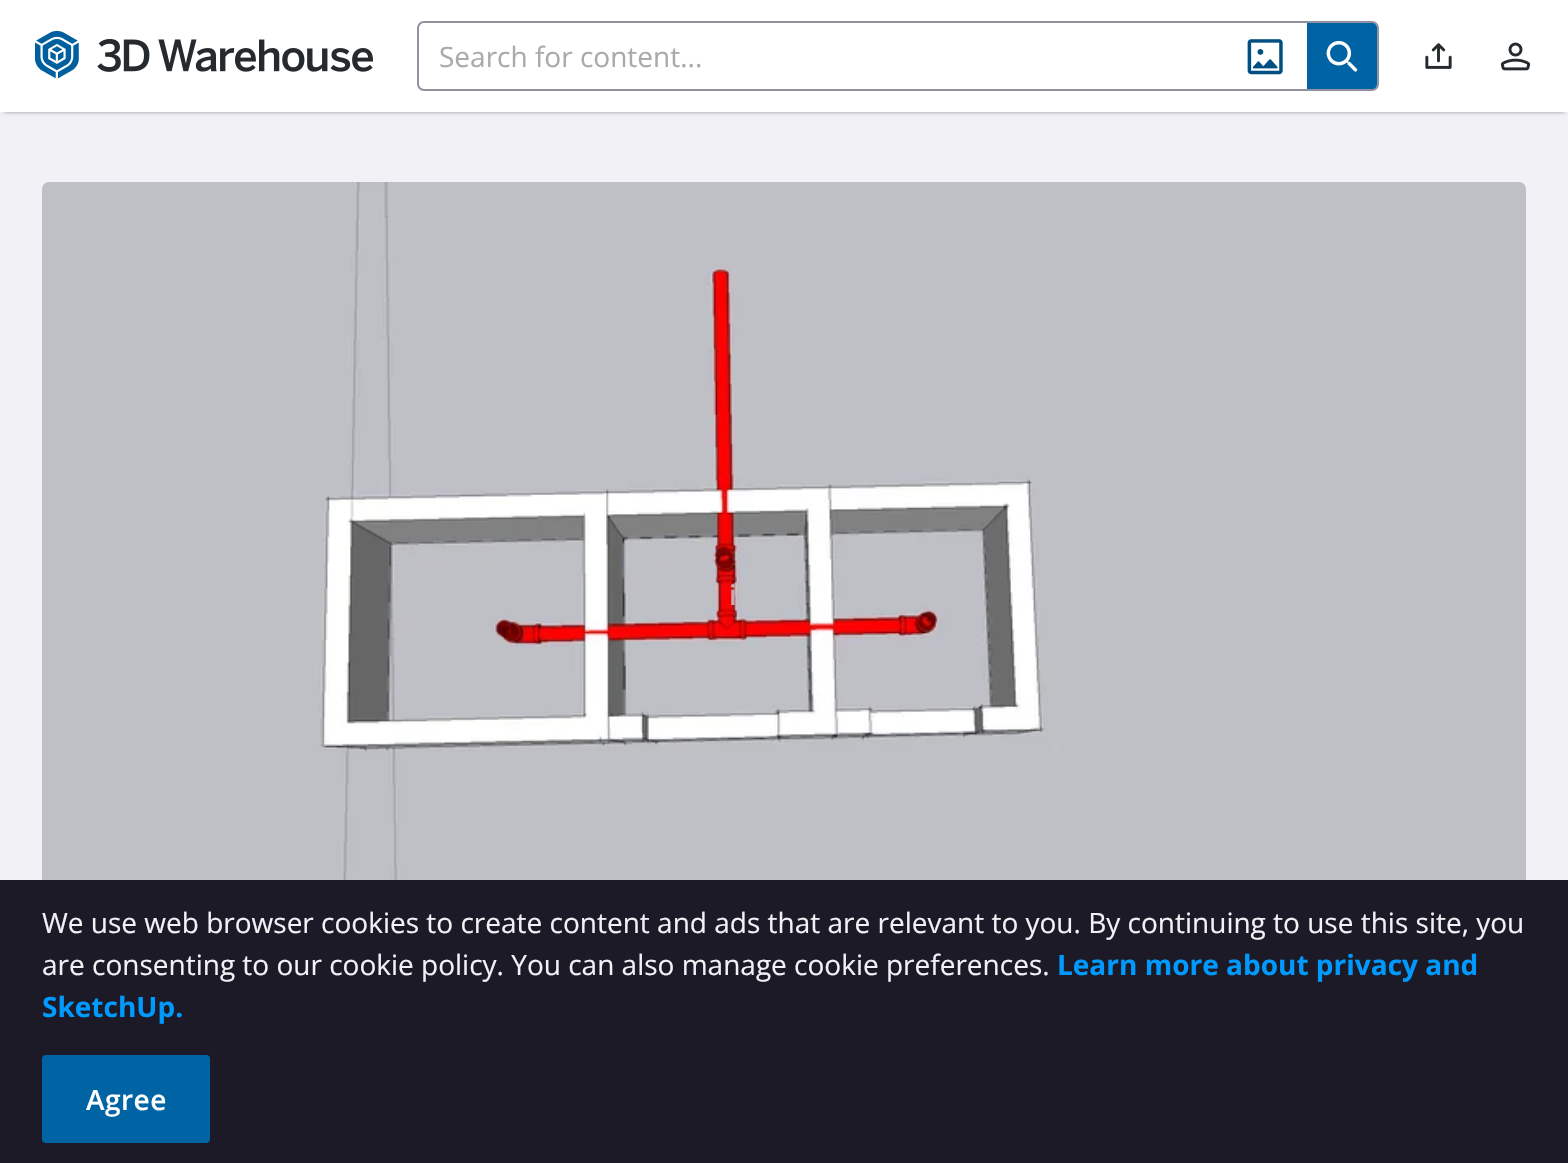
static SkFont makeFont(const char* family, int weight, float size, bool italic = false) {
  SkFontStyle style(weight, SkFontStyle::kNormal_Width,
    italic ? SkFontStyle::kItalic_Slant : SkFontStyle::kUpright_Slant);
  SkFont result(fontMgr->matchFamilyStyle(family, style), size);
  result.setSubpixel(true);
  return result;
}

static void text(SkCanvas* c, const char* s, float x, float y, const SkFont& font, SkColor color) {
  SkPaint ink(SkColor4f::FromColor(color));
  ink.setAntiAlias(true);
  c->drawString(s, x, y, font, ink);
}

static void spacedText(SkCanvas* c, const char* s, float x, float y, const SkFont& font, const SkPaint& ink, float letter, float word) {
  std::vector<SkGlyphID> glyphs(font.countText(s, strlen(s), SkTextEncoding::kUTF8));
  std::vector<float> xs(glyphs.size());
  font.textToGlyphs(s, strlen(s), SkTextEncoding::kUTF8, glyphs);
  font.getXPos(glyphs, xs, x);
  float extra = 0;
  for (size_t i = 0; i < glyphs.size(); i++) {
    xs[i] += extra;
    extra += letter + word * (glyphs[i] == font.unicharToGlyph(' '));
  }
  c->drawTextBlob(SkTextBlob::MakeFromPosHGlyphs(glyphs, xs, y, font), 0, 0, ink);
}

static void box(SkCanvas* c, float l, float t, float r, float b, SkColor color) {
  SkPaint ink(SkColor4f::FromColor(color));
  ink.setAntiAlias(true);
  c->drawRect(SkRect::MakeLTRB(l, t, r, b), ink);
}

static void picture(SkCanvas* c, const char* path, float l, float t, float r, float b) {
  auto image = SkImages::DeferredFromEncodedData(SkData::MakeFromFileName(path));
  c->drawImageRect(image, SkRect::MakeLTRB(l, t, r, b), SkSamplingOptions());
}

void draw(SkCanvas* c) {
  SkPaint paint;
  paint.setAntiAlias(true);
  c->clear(0xfff1f1f6);
  paint.setColor(0xff90939f);
  paint.setMaskFilter(SkMaskFilter::MakeBlur(kNormal_SkBlurStyle, 2));
  c->drawRect(SkRect::MakeLTRB(4, 7, 1565, 112), paint);
  paint.setMaskFilter(nullptr);
  box(c, 0, 0, 1568, 112, 0xffffffff);
  picture(c, "img_01.png", 35, 30, 79, 79);
  picture(c, "img_02.png", 97, 39, 373, 72);
  paint.setStyle(SkPaint::kStroke_Style);
  paint.setStrokeWidth(2);
  c->drawRoundRect(SkRect::MakeLTRB(418, 22, 1378, 90), 6, 6, paint);
  SkFont face1 = makeFont("Open Sans", 400, 28);
  text(c, "Search for content...", 439, 67, face1, 0xffa8aaab);
  picture(c, "img_03.png", 1247, 39, 1283, 75);
  paint.setStyle(SkPaint::kFill_Style);
  paint.setColor(0xff0063a3);
  c->drawPath(SkPathBuilder().moveTo(1307, 23).lineTo(1372, 23).cubicTo(1375, 23, 1377, 25, 1377, 28).lineTo(1377, 84).cubicTo(1377, 87, 1375, 89, 1372, 89).lineTo(1307, 89).close().detach(), paint);
  picture(c, "img_04.png", 1326, 41, 1358, 72);
  picture(c, "img_05.png", 1425, 43, 1452, 69);
  picture(c, "img_06.png", 1500, 42, 1531, 71);
  picture(c, "img_07.png", 42, 182, 1526, 880);
  SkFont face2 = makeFont("Open Sans", 600, 28);
  paint.setColor(0xffc4abaf);
  spacedText(c, "i", 729, 605, face2, paint, 0.5f, 0);
  box(c, 0, 880, 1568, 1163, 0xff1b1a26);
  text(c, "We use web browser cookies to create content and ads that are relevant to you. By continuing to use this site, you", 42, 933, face1, 0xfff1f1f6);
  text(c, "are consenting to our cookie policy. You can also manage cookie preferences.", 42, 975, face1, 0xfff1f1f6);
  SkFont face3 = makeFont("Open Sans", 700, 28);
  text(c, "Learn more about privacy and", 1057, 975, face3, 0xff0099fe);
  text(c, "SketchUp.", 42, 1017, face3, 0xff0099fe);
  paint.setColor(0xff0063a3);
  c->drawRoundRect(SkRect::MakeLTRB(43, 1056, 209, 1142), 3, 3, paint);
  paint.setStyle(SkPaint::kStroke_Style);
  c->drawRoundRect(SkRect::MakeLTRB(43, 1056, 209, 1142), 3, 3, paint);
  paint.setStyle(SkPaint::kFill_Style);
  paint.setColor(0xffffffff);
  spacedText(c, "Agree", 86, 1110, face2, paint, 0.5f, 0);
}
